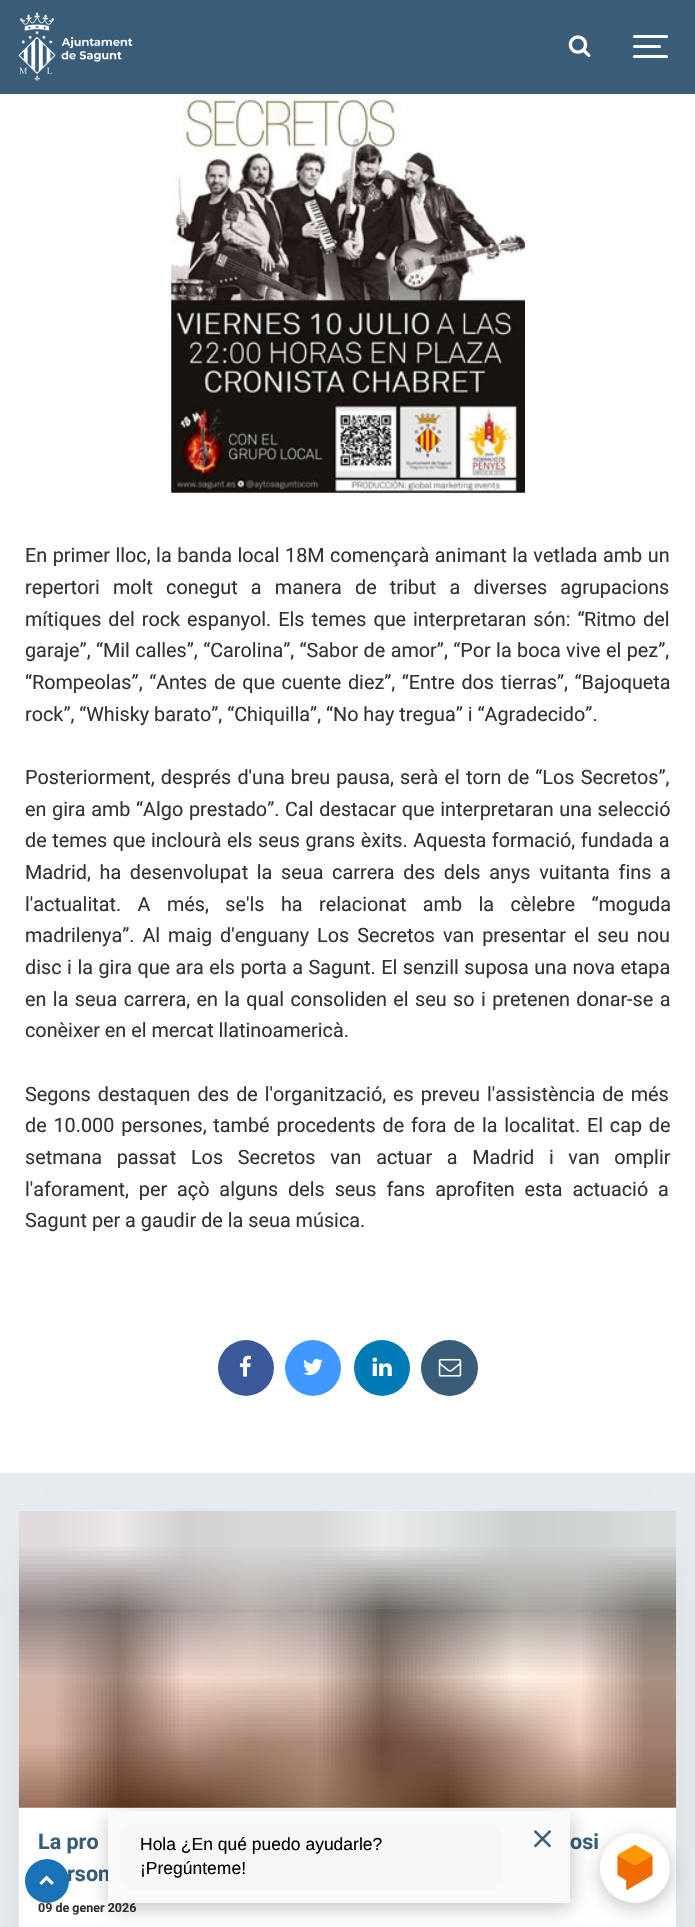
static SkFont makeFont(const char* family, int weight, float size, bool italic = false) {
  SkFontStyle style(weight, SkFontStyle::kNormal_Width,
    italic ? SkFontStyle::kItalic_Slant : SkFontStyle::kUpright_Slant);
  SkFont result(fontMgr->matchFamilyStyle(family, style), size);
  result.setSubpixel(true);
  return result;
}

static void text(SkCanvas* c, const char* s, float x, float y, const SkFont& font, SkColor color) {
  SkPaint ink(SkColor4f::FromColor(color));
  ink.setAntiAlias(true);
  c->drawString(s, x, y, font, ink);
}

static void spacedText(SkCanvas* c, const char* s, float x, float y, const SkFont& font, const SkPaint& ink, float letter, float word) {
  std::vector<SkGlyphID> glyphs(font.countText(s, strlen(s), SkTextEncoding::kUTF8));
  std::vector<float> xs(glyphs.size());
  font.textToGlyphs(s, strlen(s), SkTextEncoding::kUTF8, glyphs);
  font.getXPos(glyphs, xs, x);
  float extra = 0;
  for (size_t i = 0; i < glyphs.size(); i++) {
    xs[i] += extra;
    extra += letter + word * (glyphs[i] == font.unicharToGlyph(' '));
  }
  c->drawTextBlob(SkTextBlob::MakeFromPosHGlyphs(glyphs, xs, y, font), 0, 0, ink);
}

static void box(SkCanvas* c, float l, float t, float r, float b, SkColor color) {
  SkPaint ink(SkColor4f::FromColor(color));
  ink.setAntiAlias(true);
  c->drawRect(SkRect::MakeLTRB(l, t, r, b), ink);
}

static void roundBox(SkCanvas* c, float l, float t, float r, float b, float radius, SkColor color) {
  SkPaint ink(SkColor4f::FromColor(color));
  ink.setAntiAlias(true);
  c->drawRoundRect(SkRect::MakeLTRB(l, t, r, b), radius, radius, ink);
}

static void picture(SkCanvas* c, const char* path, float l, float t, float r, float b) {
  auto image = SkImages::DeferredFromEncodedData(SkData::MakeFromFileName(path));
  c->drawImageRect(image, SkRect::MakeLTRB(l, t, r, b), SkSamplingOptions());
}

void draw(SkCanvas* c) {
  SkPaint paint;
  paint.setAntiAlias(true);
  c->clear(0xffffffff);
  box(c, 0, 0, 695, 94, 0xff395c78);
  picture(c, "img_01.png", 18, 12, 133, 82);
  picture(c, "img_02.png", 568, 35, 591, 58);
  roundBox(c, 633, 45, 661, 48, 1.5f, 0xffffffff);
  roundBox(c, 633, 35, 668, 38, 1.5f, 0xffffffff);
  roundBox(c, 633, 55, 668, 58, 1.5f, 0xffffffff);
  picture(c, "img_03.png", 171, 94, 525, 493);
  SkFont face1 = makeFont("Roboto", 400, 19.8f);
  paint.setColor(0xff333333);
  spacedText(c, "En primer lloc, la banda local 18M començarà animant la vetlada amb un", 25, 562, face1, paint, 0, 0.6f);
  spacedText(c, "repertori molt conegut a manera de tribut a diverses agrupacions", 25, 594, face1, paint, 0, 8.25f);
  spacedText(c, "mítiques del rock espanyol. Els temes que interpretaran són: “", 25, 626, face1, paint, 0, 2);
  spacedText(c, "Ritmo del", 584, 626, face1, paint, 0, 2);
  spacedText(c, "garaje”, “Mil calles”, “Carolina”, “Sabor de amor”, “Por la boca vive el pez”,", 25, 657, face1, paint, 0, 0.5f);
  spacedText(c, "“Rompeolas”, “Antes de que cuente diez”, “Entre dos tierras”, “Bajoqueta", 25, 689, face1, paint, 0, 1.75f);
  text(c, "rock”, “Whisky barato”, “Chiquilla”, “No hay tregua” i “Agradecido”.", 25, 721, face1, 0xff333333);
  spacedText(c, "Posteriorment, després d'una breu pausa, serà el torn de “Los Secretos”,", 25, 784, face1, paint, 0, 1.25f);
  spacedText(c, "en gira amb “Algo prestado”. Cal destacar que interpretaran una selecció", 25, 816, face1, paint, 0, 0.75f);
  spacedText(c, "de temes que inclourà els seus grans èxits. Aquesta formació, fundada a", 25, 847, face1, paint, 0, 0.6f);
  spacedText(c, "Madrid, ha desenvolupat la seua carrera des dels anys vuitanta fins a", 25, 879, face1, paint, 0, 3.75f);
  spacedText(c, "l'actualitat. A més, se'ls ha relacionat amb la cèlebre “moguda", 25, 911, face1, paint, 0, 11.5f);
  spacedText(c, "madrilenya”. Al maig d'enguany Los Secretos van presentar el seu nou", 25, 942, face1, paint, 0, 3);
  spacedText(c, "disc i la gira que ara els porta a Sagunt. El senzill suposa una nova etapa", 25, 974, face1, paint, 0, 0.6f);
  spacedText(c, "en la seua carrera, en la qual consoliden el seu so i pretenen donar-se a", 25, 1006, face1, paint, 0, 1.5f);
  text(c, "conèixer en el mercat llatinoamericà.", 25, 1037, face1, 0xff333333);
  spacedText(c, "Segons destaquen des de l'organització, es preveu l'assistència de més", 25, 1101, face1, paint, 0, 2);
  spacedText(c, "de 10.000 persones, també procedents de fora de la localitat. El cap de", 25, 1132, face1, paint, 0, 1.9f);
  spacedText(c, "setmana passat Los Secretos van actuar a Madrid i van omplir", 25, 1164, face1, paint, 0, 9.75f);
  spacedText(c, "l'aforament, per açò alguns dels seus fans aprofiten esta actuació a", 25, 1196, face1, paint, 0, 5);
  text(c, "Sagunt per a gaudir de la seua música.", 25, 1227, face1, 0xff333333);
  paint.setColor(0xff3b5998);
  c->drawCircle(246, 1368, 28, paint);
  picture(c, "img_04.png", 239, 1355, 251, 1377);
  paint.setColor(0xff4099ff);
  c->drawCircle(313, 1368, 28, paint);
  picture(c, "img_05.png", 303, 1358, 323, 1375);
  paint.setColor(0xff007bb5);
  c->drawCircle(382, 1368, 28, paint);
  picture(c, "img_06.png", 372, 1357, 392, 1376);
  roundBox(c, 421, 1340, 478, 1396, 28, 0xff395c78);
  picture(c, "img_07.png", 438, 1358, 462, 1377);
  box(c, 0, 1473, 695, 1927, 0xffe6ebef);
  paint.setColor(0x26000000);
  paint.setMaskFilter(SkMaskFilter::MakeBlur(kNormal_SkBlurStyle, 27));
  c->drawRect(SkRect::MakeLTRB(44, 1563, 651, 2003), paint);
  paint.setMaskFilter(nullptr);
  box(c, 19, 1510, 676, 1927, 0xffffffff);
  picture(c, "img_08.png", 18, 1510, 677, 1808);
  SkFont face2 = makeFont("Roboto", 700, 21.5f);
  text(c, "La pro", 38, 1849, face2, 0xff395c78);
  text(c, "osi", 570, 1849, face2, 0xff395c78);
  text(c, "rson", 67, 1881, face2, 0xff395c78);
  SkFont face3 = makeFont("Roboto", 700, 12.5f);
  text(c, "09 de gener 2026", 38, 1912, face3, 0xff333333);
  paint.setColor(0x3d000000);
  paint.setMaskFilter(SkMaskFilter::MakeBlur(kNormal_SkBlurStyle, 9.5f));
  c->drawRoundRect(SkRect::MakeLTRB(109, 1816, 571, 1908), 5, 5, paint);
  paint.setMaskFilter(nullptr);
  box(c, 108, 1811, 570, 1903, 0xfffafafa);
  roundBox(c, 120, 1824, 503, 1890, 15, 0xfff7f7f7);
  SkFont face4 = makeFont("Liberation Sans", 400, 17.5f);
  text(c, "Hola ¿En qué puedo ayudarle?", 140, 1850, face4, 0xff000000);
  text(c, "¡Pregúnteme!", 140, 1874, face4, 0xff000000);
  picture(c, "img_09.png", 533, 1830, 552, 1848);
  paint.setMaskFilter(SkMaskFilter::MakeBlur(kNormal_SkBlurStyle, 9.5f));
  c->drawRoundRect(SkRect::MakeLTRB(601, 1838, 671, 1908), 35, 35, paint);
  paint.setMaskFilter(nullptr);
  paint.setColor(0xffffffff);
  c->drawCircle(635, 1868, 35, paint);
  picture(c, "img_10.png", 617, 1845, 653, 1890);
  paint.setColor(0xff1a72b9);
  c->drawCircle(47, 1881, 22, paint);
  picture(c, "img_11.png", 39, 1875, 54, 1885);
}
